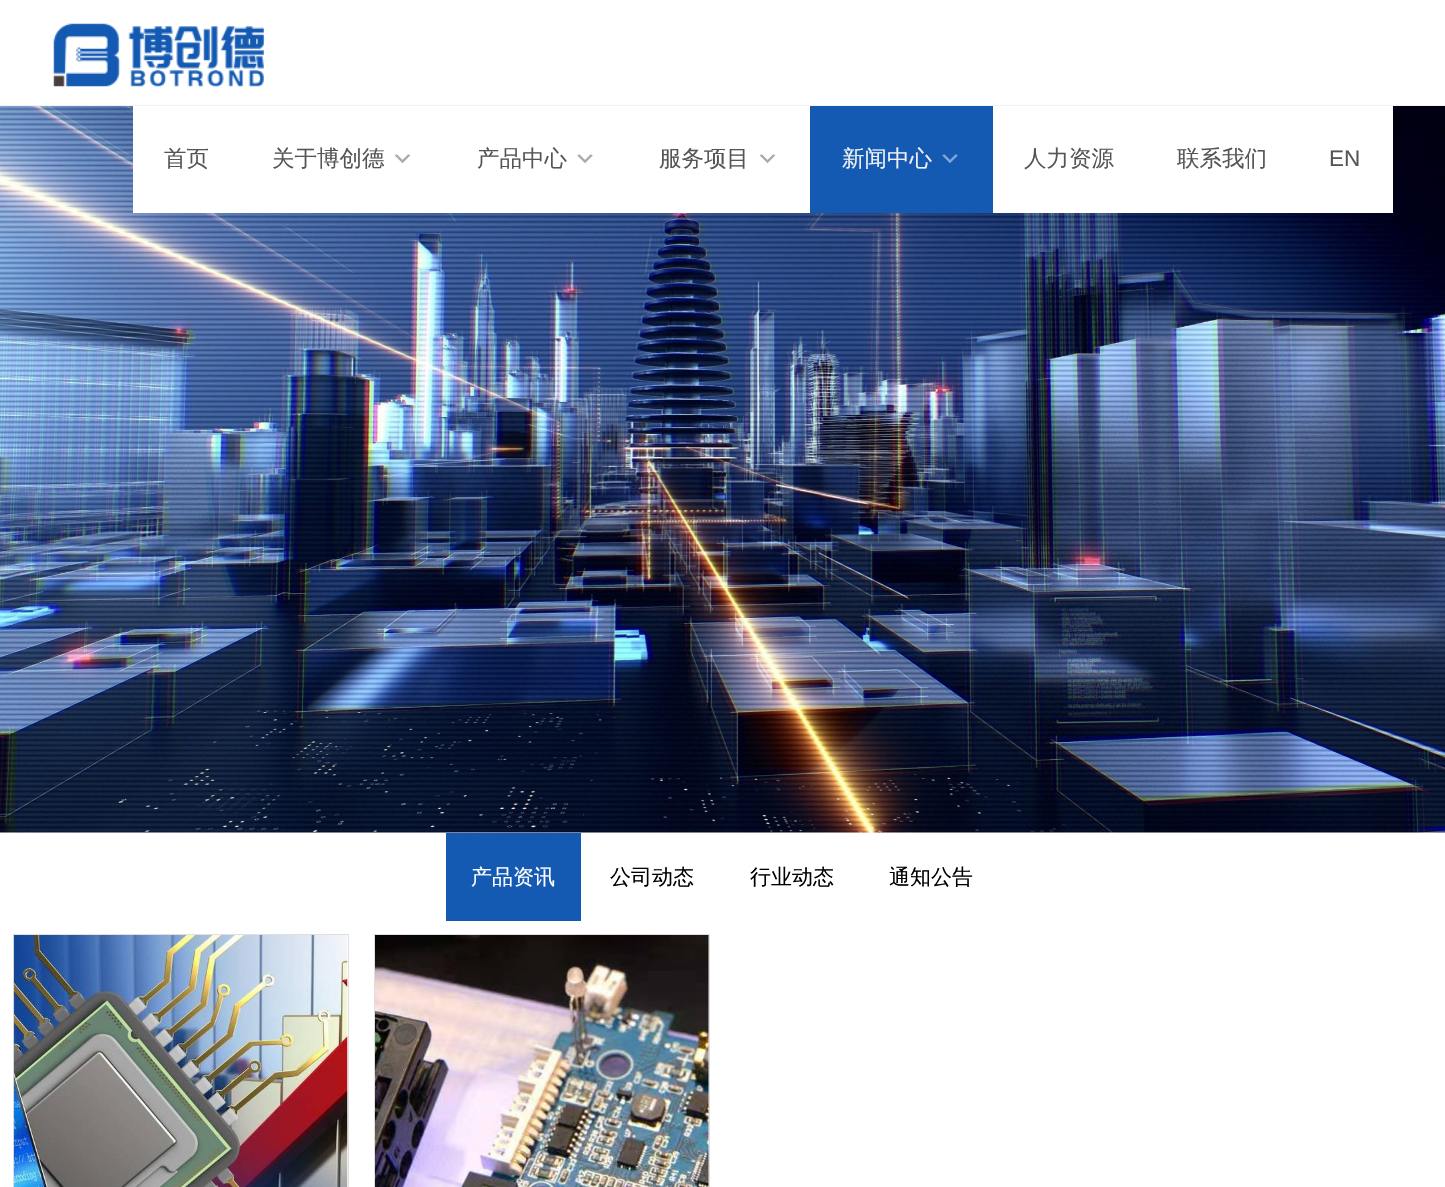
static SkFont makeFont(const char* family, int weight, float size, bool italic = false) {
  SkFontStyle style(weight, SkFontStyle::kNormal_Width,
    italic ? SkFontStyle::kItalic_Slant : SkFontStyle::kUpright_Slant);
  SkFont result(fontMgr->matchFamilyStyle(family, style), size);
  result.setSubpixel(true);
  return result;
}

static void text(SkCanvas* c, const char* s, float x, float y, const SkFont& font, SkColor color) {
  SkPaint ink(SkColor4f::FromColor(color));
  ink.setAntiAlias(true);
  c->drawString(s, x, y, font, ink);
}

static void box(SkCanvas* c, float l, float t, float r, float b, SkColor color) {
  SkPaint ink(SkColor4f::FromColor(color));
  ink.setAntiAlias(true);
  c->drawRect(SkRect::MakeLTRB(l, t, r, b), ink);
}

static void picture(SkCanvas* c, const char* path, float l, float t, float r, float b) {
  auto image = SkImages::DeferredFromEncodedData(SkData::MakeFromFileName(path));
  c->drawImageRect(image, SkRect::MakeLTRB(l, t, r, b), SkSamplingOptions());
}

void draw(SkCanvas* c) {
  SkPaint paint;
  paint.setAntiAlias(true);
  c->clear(0xffffffff);
  box(c, 0, 105, 1445, 106, 0xfff2f2f2);
  picture(c, "img_01.png", 53, 23, 264, 87);
  picture(c, "img_05.png", 0, 106, 1445, 833);
  box(c, 133, 106, 1393, 213, 0xffffffff);
  SkFont face1 = makeFont("WenQuanYi Zen Hei", 500, 22.5f);
  text(c, "首页", 164, 166, face1, 0xff555555);
  text(c, "关于博创德", 272, 166, face1, 0xff555555);
  picture(c, "img_02.png", 394, 154, 411, 164);
  text(c, "产品中心", 477, 166, face1, 0xff555555);
  picture(c, "img_03.png", 577, 154, 593, 163);
  text(c, "服务项目", 659, 166, face1, 0xff555555);
  picture(c, "img_02.png", 759, 154, 776, 164);
  box(c, 810, 106, 993, 213, 0xff145ab2);
  text(c, "新闻中心", 842, 166, face1, 0xfff1f1f1);
  picture(c, "img_04.png", 942, 154, 958, 163);
  text(c, "人力资源", 1024, 166, face1, 0xff555555);
  text(c, "联系我们", 1177, 166, face1, 0xff555555);
  SkFont face2 = makeFont("Liberation Sans", 400, 22.5f);
  text(c, "EN", 1329, 166, face2, 0xff555555);
  box(c, 446, 833, 581, 921, 0xff145ab2);
  SkFont face3 = makeFont("WenQuanYi Zen Hei", 500, 21);
  text(c, "产品资讯", 471, 884, face3, 0xffffffff);
  text(c, "公司动态", 610, 884, face3, 0xff000000);
  text(c, "行业动态", 750, 884, face3, 0xff000000);
  text(c, "通知公告", 889, 884, face3, 0xff000000);
  paint.setStyle(SkPaint::kStroke_Style);
  paint.setStrokeWidth(1);
  paint.setColor(0xffdfdfdf);
  c->drawRect(SkRect::MakeLTRB(13.5f, 934.5f, 348.5f, 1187.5f), paint);
  picture(c, "img_06.png", 13, 935, 348, 1187);
  c->drawRect(SkRect::MakeLTRB(374.5f, 934.5f, 709.5f, 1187.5f), paint);
  picture(c, "img_07.png", 375, 935, 709, 1187);
}
